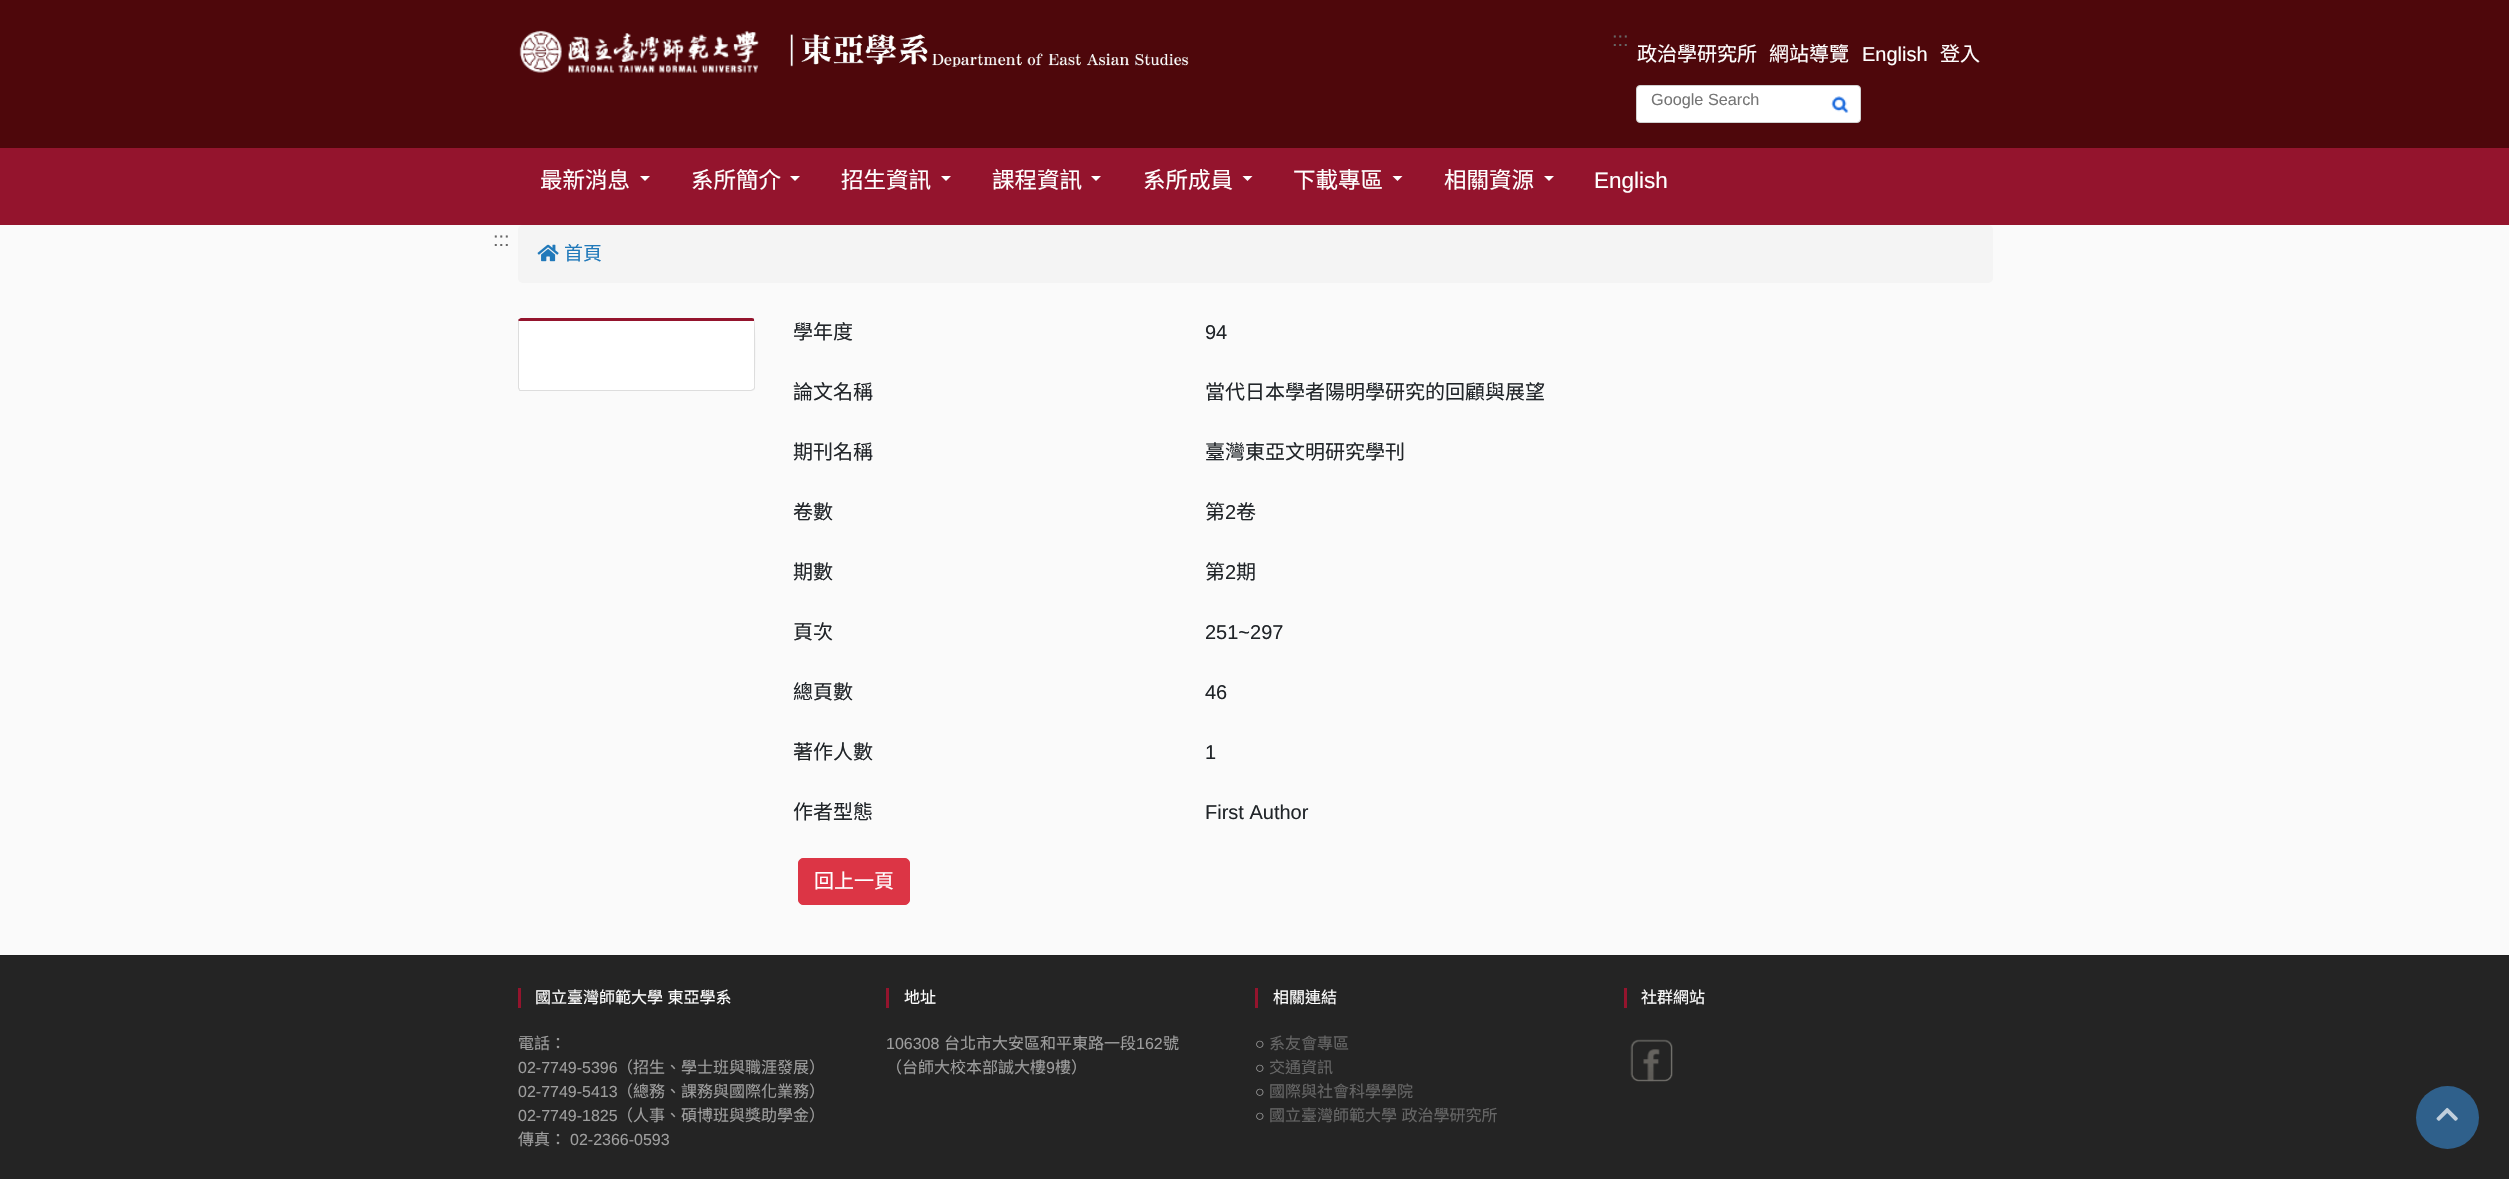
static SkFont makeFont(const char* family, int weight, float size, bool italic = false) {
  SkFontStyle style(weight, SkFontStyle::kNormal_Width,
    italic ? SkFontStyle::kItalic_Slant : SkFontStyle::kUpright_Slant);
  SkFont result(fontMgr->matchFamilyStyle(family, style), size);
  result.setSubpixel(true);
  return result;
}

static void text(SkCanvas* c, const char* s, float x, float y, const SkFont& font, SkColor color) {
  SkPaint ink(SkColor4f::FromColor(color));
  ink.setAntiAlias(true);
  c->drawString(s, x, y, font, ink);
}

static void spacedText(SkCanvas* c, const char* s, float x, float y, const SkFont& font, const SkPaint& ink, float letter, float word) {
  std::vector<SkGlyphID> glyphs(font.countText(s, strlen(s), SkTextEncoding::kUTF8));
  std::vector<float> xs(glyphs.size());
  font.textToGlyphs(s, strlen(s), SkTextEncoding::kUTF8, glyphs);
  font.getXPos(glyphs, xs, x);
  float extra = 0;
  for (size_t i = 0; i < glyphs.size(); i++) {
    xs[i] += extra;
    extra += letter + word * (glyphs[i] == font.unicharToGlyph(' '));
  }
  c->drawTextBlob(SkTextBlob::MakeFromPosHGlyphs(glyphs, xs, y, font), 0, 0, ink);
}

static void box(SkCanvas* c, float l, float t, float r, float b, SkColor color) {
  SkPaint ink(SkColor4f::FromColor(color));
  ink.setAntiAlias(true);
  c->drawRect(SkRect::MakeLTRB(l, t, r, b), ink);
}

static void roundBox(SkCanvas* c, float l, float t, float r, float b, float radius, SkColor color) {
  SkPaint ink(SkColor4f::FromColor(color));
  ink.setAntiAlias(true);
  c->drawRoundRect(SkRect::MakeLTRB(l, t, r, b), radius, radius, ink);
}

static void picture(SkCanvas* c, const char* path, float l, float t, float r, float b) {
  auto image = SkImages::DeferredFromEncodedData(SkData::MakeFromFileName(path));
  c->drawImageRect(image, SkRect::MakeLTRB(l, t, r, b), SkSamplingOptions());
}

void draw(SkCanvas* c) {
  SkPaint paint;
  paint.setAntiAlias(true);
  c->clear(0xfffafafa);
  box(c, 0, 0, 2509, 148, 0xff4e070b);
  picture(c, "img_01.png", 519, 30, 759, 73);
  picture(c, "img_02.png", 790, 34, 1189, 67);
  SkFont face1 = makeFont("Liberation Sans", 400, 20);
  text(c, ":::", 1612, 46, face1, 0xff666666);
  SkFont face2 = makeFont("Noto Sans CJK TC", 400, 20);
  text(c, "政治學研究所", 1637, 61, face2, 0xffffffff);
  text(c, "網站導覽", 1769, 61, face2, 0xffffffff);
  text(c, "English", 1862, 61, face1, 0xffffffff);
  text(c, "登入", 1940, 61, face2, 0xffffffff);
  paint.setColor(0xffffffff);
  c->drawRoundRect(SkRect::MakeLTRB(1636.5f, 85.5f, 1860.5f, 122.5f), 3.5f, 3.5f, paint);
  paint.setStyle(SkPaint::kStroke_Style);
  paint.setStrokeWidth(1);
  paint.setColor(0xffd0d0d0);
  c->drawRoundRect(SkRect::MakeLTRB(1636.5f, 85.5f, 1860.5f, 122.5f), 3.5f, 3.5f, paint);
  SkFont face3 = makeFont("Liberation Sans", 400, 16.25f);
  text(c, "Google Search", 1651, 105, face3, 0xff757575);
  picture(c, "img_03.png", 1831, 96, 1849, 113);
  box(c, 0, 148, 2509, 225, 0xff94142d);
  SkFont face4 = makeFont("Noto Sans CJK TC", 400, 22.5f);
  text(c, "最新消息", 540, 188, face4, 0xffffffff);
  paint.setStyle(SkPaint::kFill_Style);
  paint.setColor(0xffffffff);
  c->drawPath(SkPathBuilder().moveTo(640, 176).lineTo(650, 176).lineTo(645, 181).close().detach(), paint);
  text(c, "系所簡介", 691, 188, face4, 0xffffffff);
  c->drawPath(SkPathBuilder().moveTo(790, 176).lineTo(800, 176).lineTo(795, 181).close().detach(), paint);
  text(c, "招生資訊", 841, 188, face4, 0xffffffff);
  c->drawPath(SkPathBuilder().moveTo(941, 176).lineTo(951, 176).lineTo(946, 181).close().detach(), paint);
  text(c, "課程資訊", 992, 188, face4, 0xffffffff);
  c->drawPath(SkPathBuilder().moveTo(1091, 176).lineTo(1101, 176).lineTo(1096, 181).close().detach(), paint);
  text(c, "系所成員", 1143, 188, face4, 0xffffffff);
  c->drawPath(SkPathBuilder().moveTo(1242.5f, 176).lineTo(1252.5f, 176).lineTo(1247.5f, 181).close().detach(), paint);
  text(c, "下載專區", 1293, 188, face4, 0xffffffff);
  c->drawPath(SkPathBuilder().moveTo(1392.5f, 176).lineTo(1402.5f, 176).lineTo(1397.5f, 181).close().detach(), paint);
  text(c, "相關資源", 1444, 188, face4, 0xffffffff);
  c->drawPath(SkPathBuilder().moveTo(1544, 176).lineTo(1554, 176).lineTo(1549, 181).close().detach(), paint);
  SkFont face5 = makeFont("Liberation Sans", 400, 22.5f);
  text(c, "English", 1594, 188, face5, 0xffffffff);
  text(c, ":::", 493, 246, face1, 0xff666666);
  roundBox(c, 518, 225, 1993, 283, 5, 0xfff4f4f4);
  picture(c, "img_04.png", 537, 244, 559, 262);
  SkFont face6 = makeFont("Noto Sans CJK TC", 400, 19);
  text(c, "首頁", 564, 260, face6, 0xff2179ba);
  c->drawPath(SkPathBuilder().moveTo(521, 321).lineTo(754, 321).lineTo(754, 388).cubicTo(754, 389, 753, 390, 751, 390).lineTo(521, 390).cubicTo(520, 390, 519, 389, 519, 388).lineTo(519, 321).close().detach(), paint);
  paint.setColor(0xff94142d);
  c->drawPath(SkPathBuilder().moveTo(521, 318).cubicTo(520, 318, 519, 319, 518, 320).lineTo(519, 322).lineTo(519, 321).lineTo(754, 321).lineTo(754, 319).cubicTo(754, 318, 752, 318, 751, 318).close().detach(), paint);
  paint.setColor(0xffdddddd);
  c->drawPath(SkPathBuilder().moveTo(755, 388).cubicTo(755, 381, 756, 321, 754, 319).lineTo(754, 321).lineTo(754, 388).lineTo(753, 389).lineTo(754, 390).close().detach(), paint);
  c->drawPath(SkPathBuilder().moveTo(754, 390).lineTo(751, 391).lineTo(521, 391).cubicTo(520, 391, 519, 391, 519, 390).lineTo(520, 389).lineTo(520, 390).lineTo(713, 390).lineTo(751, 390).lineTo(753, 389).close().detach(), paint);
  c->drawPath(SkPathBuilder().moveTo(518, 320).lineTo(518, 388).lineTo(519, 390).lineTo(520, 389).lineTo(519, 388).lineTo(519, 322).close().detach(), paint);
  text(c, "學年度", 793, 339, face2, 0xff212529);
  text(c, "94", 1205, 339, face1, 0xff212529);
  text(c, "論文名稱", 793, 399, face2, 0xff212529);
  text(c, "當代日本學者陽明學研究的回顧與展望", 1205, 399, face2, 0xff212529);
  text(c, "期刊名稱", 793, 459, face2, 0xff212529);
  text(c, "臺灣東亞文明研究學刊", 1205, 459, face2, 0xff212529);
  text(c, "卷數", 793, 519, face2, 0xff212529);
  text(c, "第", 1205, 519, face2, 0xff212529);
  text(c, "2", 1225, 519, face1, 0xff212529);
  text(c, "卷", 1236, 519, face2, 0xff212529);
  text(c, "期數", 793, 579, face2, 0xff212529);
  text(c, "第", 1205, 579, face2, 0xff212529);
  text(c, "2", 1225, 579, face1, 0xff212529);
  text(c, "期", 1236, 579, face2, 0xff212529);
  text(c, "頁次", 793, 639, face2, 0xff212529);
  text(c, "251~297", 1205, 639, face1, 0xff212529);
  text(c, "總頁數", 793, 699, face2, 0xff212529);
  text(c, "46", 1205, 699, face1, 0xff212529);
  text(c, "著作人數", 793, 759, face2, 0xff212529);
  text(c, "1", 1205, 759, face1, 0xff212529);
  text(c, "作者型態", 793, 819, face2, 0xff212529);
  text(c, "First Author", 1205, 819, face1, 0xff212529);
  paint.setColor(0xffdc3545);
  c->drawRoundRect(SkRect::MakeLTRB(798.5f, 858.5f, 909.5f, 904.5f), 4.5f, 4.5f, paint);
  paint.setStyle(SkPaint::kStroke_Style);
  c->drawRoundRect(SkRect::MakeLTRB(798.5f, 858.5f, 909.5f, 904.5f), 4.5f, 4.5f, paint);
  text(c, "回上一頁", 814, 888, face2, 0xffffffff);
  box(c, 0, 956, 2509, 1179, 0xff242424);
  box(c, 0, 955, 2509, 956, 0xff202020);
  box(c, 518, 988, 521, 1008, 0xff94142d);
  SkFont face7 = makeFont("Noto Sans CJK TC", 400, 16);
  paint.setStyle(SkPaint::kFill_Style);
  paint.setColor(0xffffffff);
  spacedText(c, "國立臺灣師範大學 東亞學系", 535, 1003, face7, paint, 0, 1);
  text(c, "電話：", 518, 1049, face7, 0xff9e9e9e);
  SkFont face8 = makeFont("Liberation Sans", 400, 16);
  text(c, "02-7749-5396", 518, 1073, face8, 0xff9e9e9e);
  text(c, "（招生、學士班與職涯發展）", 617, 1073, face7, 0xff9e9e9e);
  text(c, "02-7749-5413", 518, 1097, face8, 0xff9e9e9e);
  text(c, "（總務、課務與國際化業務）", 617, 1097, face7, 0xff9e9e9e);
  text(c, "02-7749-1825", 518, 1121, face8, 0xff9e9e9e);
  text(c, "（人事、碩博班與獎助學金）", 617, 1121, face7, 0xff9e9e9e);
  text(c, "傳真：", 518, 1145, face7, 0xff9e9e9e);
  text(c, "02-2366-0593", 570, 1145, face8, 0xff9e9e9e);
  box(c, 886, 988, 889, 1008, 0xff94142d);
  text(c, "地址", 904, 1003, face7, 0xffffffff);
  text(c, "106308", 886, 1049, face8, 0xff9e9e9e);
  text(c, "台北市大安區和平東路一段", 944, 1049, face7, 0xff9e9e9e);
  text(c, "162", 1136, 1049, face8, 0xff9e9e9e);
  text(c, "號", 1163, 1049, face7, 0xff9e9e9e);
  text(c, "（台師大校本部誠大樓", 886, 1073, face7, 0xff9e9e9e);
  text(c, "9", 1046, 1073, face8, 0xff9e9e9e);
  text(c, "樓）", 1055, 1073, face7, 0xff9e9e9e);
  box(c, 1255, 988, 1258, 1008, 0xff94142d);
  text(c, "相關連結", 1273, 1003, face7, 0xffffffff);
  text(c, "○", 1255, 1049, face8, 0xff9e9e9e);
  text(c, "系友會專區", 1269, 1049, face7, 0xff666666);
  text(c, "○", 1255, 1073, face8, 0xff9e9e9e);
  text(c, "交通資訊", 1269, 1073, face7, 0xff666666);
  text(c, "○", 1255, 1097, face8, 0xff9e9e9e);
  text(c, "國際與社會科學學院", 1269, 1097, face7, 0xff666666);
  text(c, "○", 1255, 1121, face8, 0xff9e9e9e);
  paint.setColor(0xff666666);
  spacedText(c, "國立臺灣師範大學 政治學研究所", 1269, 1121, face7, paint, 0, 1);
  box(c, 1624, 988, 1627, 1008, 0xff94142d);
  text(c, "社群網站", 1641, 1003, face7, 0xffffffff);
  picture(c, "img_05.png", 1630, 1039, 1673, 1082);
  paint.setColor(0xff2f608b);
  c->drawCircle(2447.5f, 1117.5f, 31.5f, paint);
  picture(c, "img_06.png", 2436, 1107, 2458, 1121);
}
